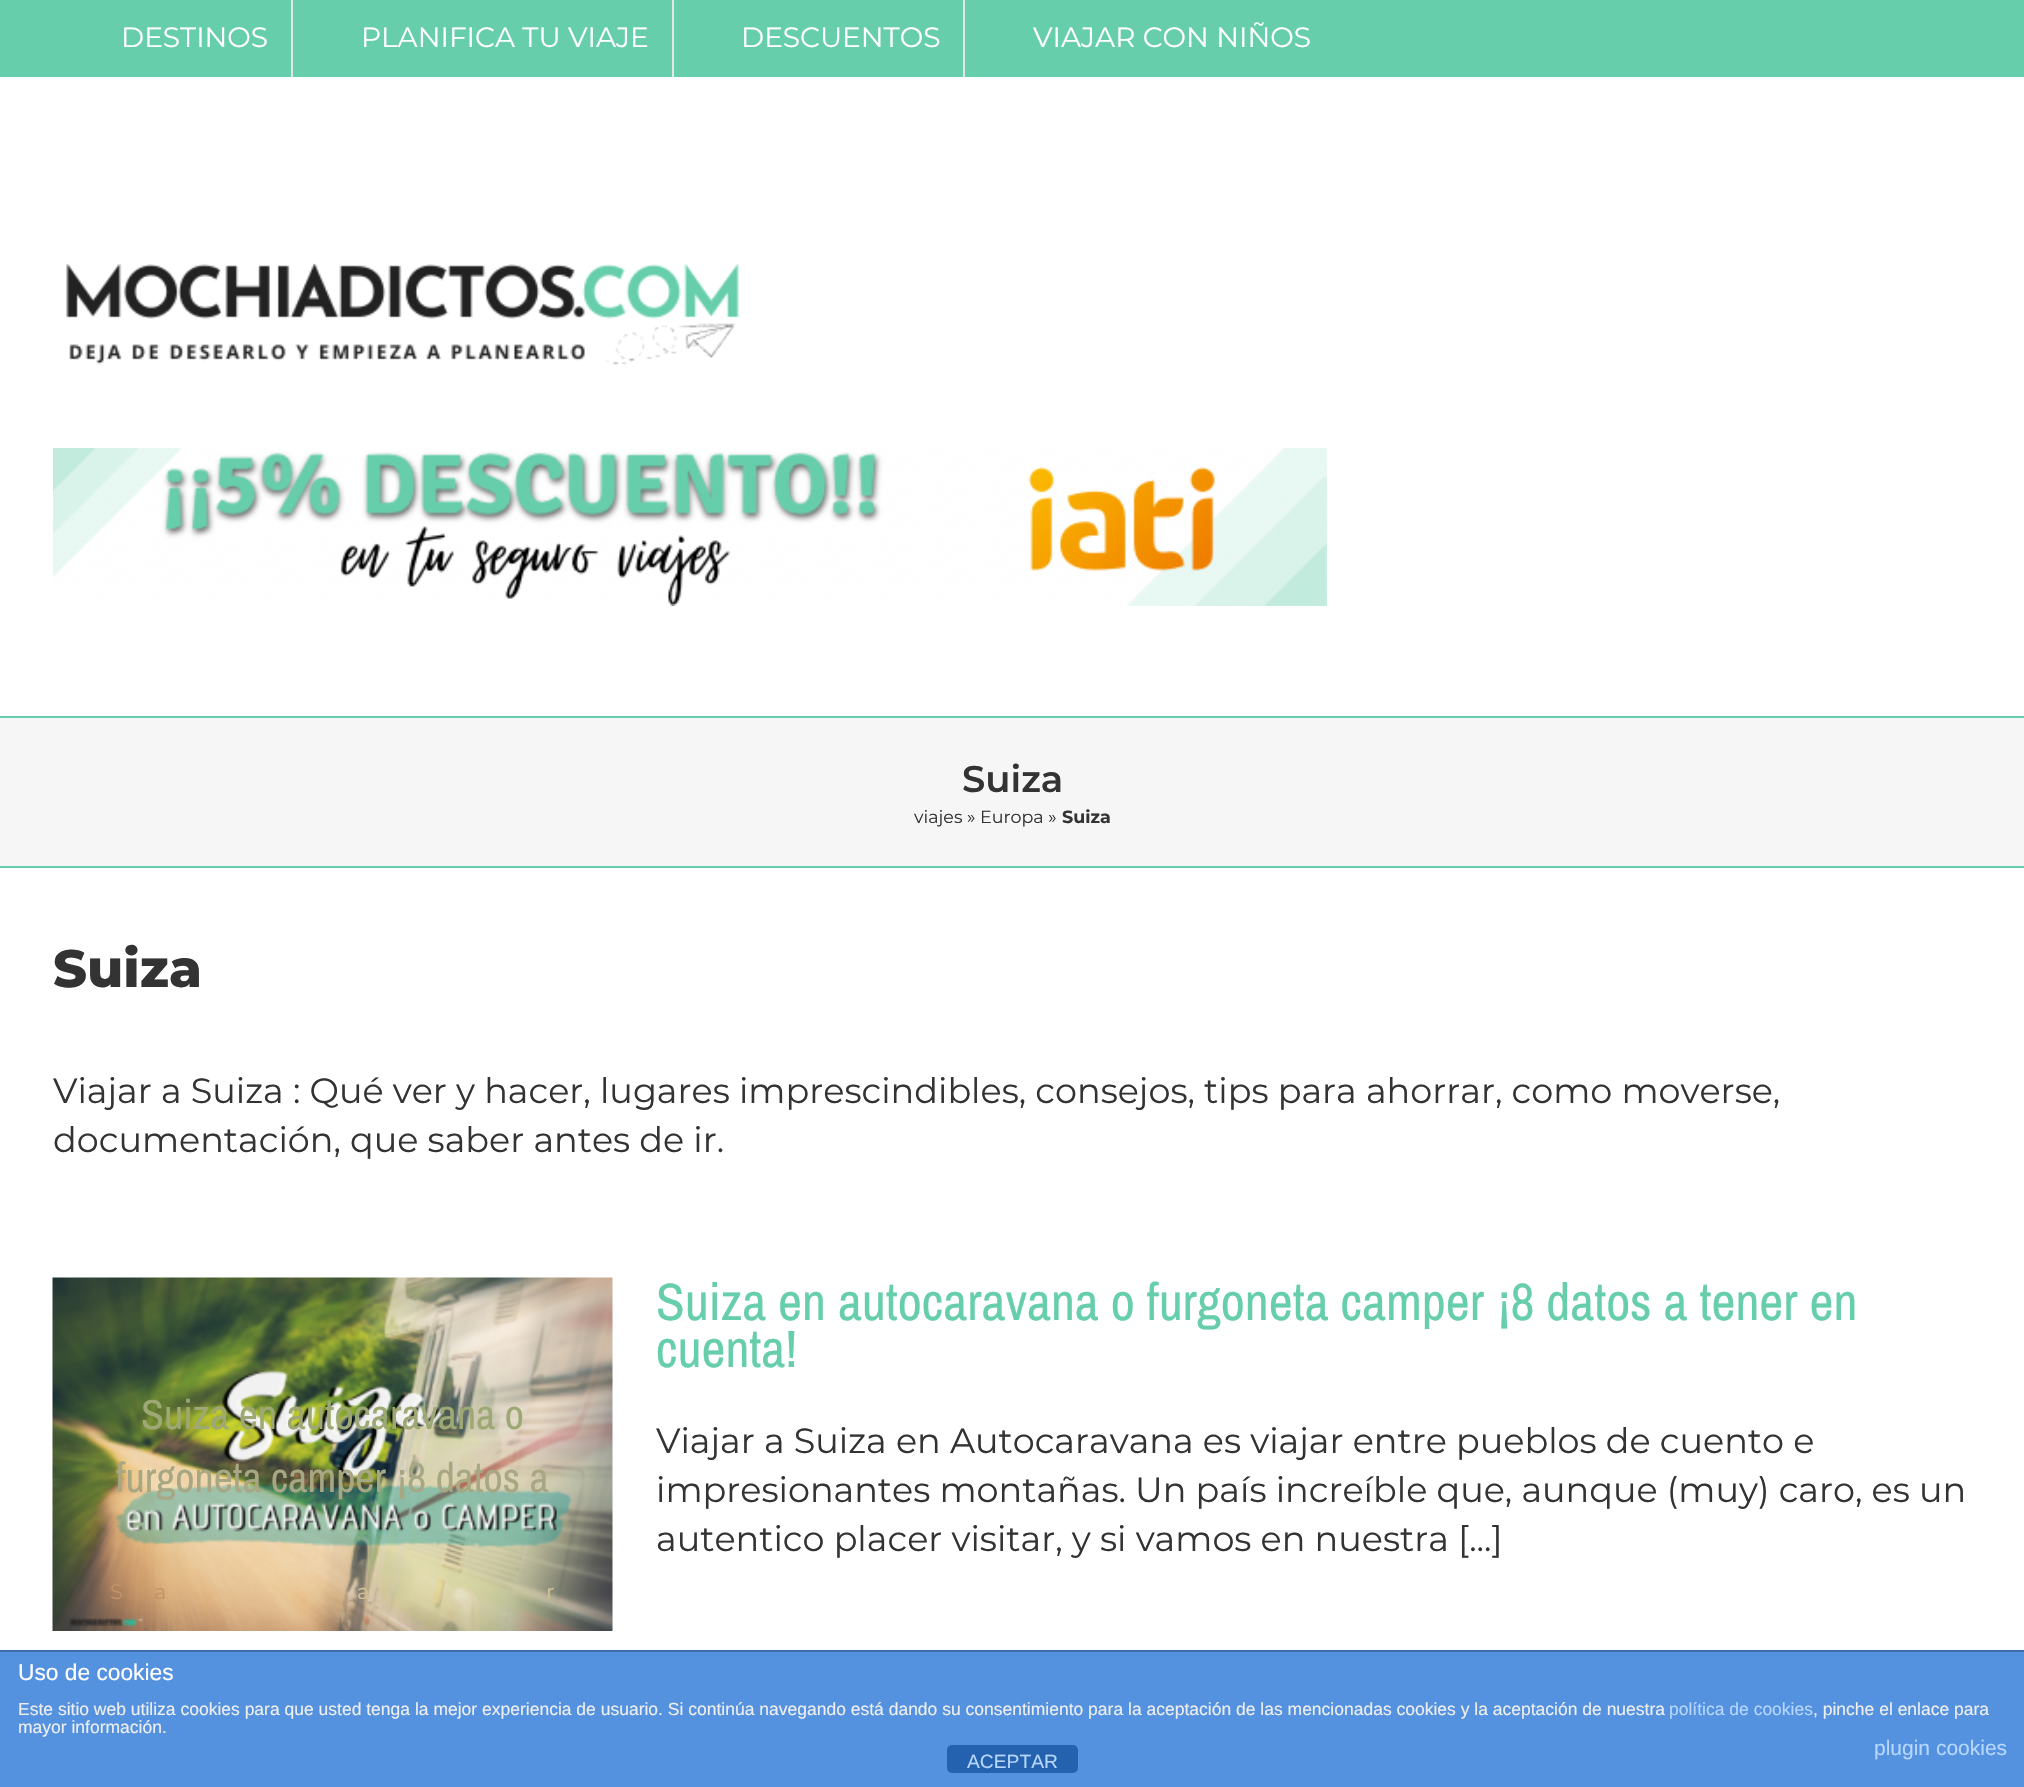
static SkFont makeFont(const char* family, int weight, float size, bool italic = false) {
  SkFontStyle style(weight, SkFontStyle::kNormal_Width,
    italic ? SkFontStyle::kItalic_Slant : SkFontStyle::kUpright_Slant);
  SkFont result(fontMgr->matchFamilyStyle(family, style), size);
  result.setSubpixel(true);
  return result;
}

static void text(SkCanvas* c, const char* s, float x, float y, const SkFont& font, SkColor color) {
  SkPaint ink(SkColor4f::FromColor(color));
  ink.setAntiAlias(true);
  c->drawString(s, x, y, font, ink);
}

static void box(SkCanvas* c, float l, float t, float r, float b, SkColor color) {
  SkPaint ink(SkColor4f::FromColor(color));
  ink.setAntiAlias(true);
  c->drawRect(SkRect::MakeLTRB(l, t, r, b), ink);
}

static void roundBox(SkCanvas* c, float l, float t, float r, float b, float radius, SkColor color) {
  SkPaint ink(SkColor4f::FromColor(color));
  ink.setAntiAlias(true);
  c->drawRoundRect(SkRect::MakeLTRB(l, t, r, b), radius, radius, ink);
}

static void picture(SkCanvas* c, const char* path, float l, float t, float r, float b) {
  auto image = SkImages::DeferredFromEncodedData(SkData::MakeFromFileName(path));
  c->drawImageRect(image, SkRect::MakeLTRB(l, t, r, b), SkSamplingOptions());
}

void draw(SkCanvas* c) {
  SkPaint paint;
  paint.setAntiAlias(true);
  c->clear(0xffffffff);
  box(c, 0, 0, 2024, 77, 0xff67ceac);
  SkFont face1 = makeFont("Montserrat", 400, 28);
  text(c, "DESTINOS", 121, 47, face1, 0xffffffff);
  box(c, 291, 0, 293, 77, 0xffe5e5e5);
  text(c, "PLANIFICA TU VIAJE", 361, 47, face1, 0xffffffff);
  box(c, 672, 0, 674, 77, 0xffe5e5e5);
  text(c, "DESCUENTOS", 741, 47, face1, 0xffffffff);
  box(c, 963, 0, 965, 77, 0xffe5e5e5);
  text(c, "VIAJAR CON NIÑOS", 1033, 47, face1, 0xffffffff);
  picture(c, "img_01.png", 66, 263, 739, 365);
  picture(c, "img_02.png", 53, 448, 1327, 606);
  box(c, 0, 718, 2024, 866, 0xfff6f6f6);
  box(c, 0, 716, 2024, 718, 0xff67ceac);
  box(c, 0, 866, 2024, 868, 0xff67ceac);
  SkFont face2 = makeFont("Montserrat", 600, 37);
  text(c, "Suiza", 962, 792, face2, 0xff333333);
  SkFont face3 = makeFont("Montserrat", 400, 17.5f);
  text(c, "viajes » Europa »", 914, 823, face3, 0xff333333);
  SkFont face4 = makeFont("Montserrat", 700, 17.5f);
  text(c, "Suiza", 1062, 823, face4, 0xff333333);
  SkFont face5 = makeFont("Montserrat", 800, 52.5f);
  text(c, "Suiza", 53, 987, face5, 0xff333333);
  SkFont face6 = makeFont("Montserrat", 400, 35);
  text(c, "Viajar a Suiza : Qué ver y hacer, lugares imprescindibles, consejos, tips para ahorrar, como moverse,", 53, 1103, face6, 0xff333333);
  text(c, "documentación, que saber antes de ir.", 53, 1152, face6, 0xff333333);
  picture(c, "img_03.png", 52, 1277, 613, 1631);
  SkFont face7 = makeFont("Archivo Narrow", 400, 42);
  text(c, "Suiza en autocaravana o", 141, 1429, face7, 0xff9ea874);
  text(c, "furgoneta camper ¡8 datos a", 116, 1492, face7, 0xffa7a783);
  SkFont face8 = makeFont("Montserrat", 400, 21);
  text(c, "S", 110, 1599, face8, 0xffc19469);
  text(c, "a", 154, 1599, face8, 0xffc19469);
  text(c, "a", 357, 1599, face8, 0xffd4c096);
  text(c, "r", 546, 1599, face8, 0xffd4c096);
  SkFont face9 = makeFont("Archivo Narrow", 400, 52.5f);
  text(c, "Suiza en autocaravana o furgoneta camper ¡8 datos a tener en", 656, 1320, face9, 0xff67ceac);
  text(c, "cuenta!", 656, 1367, face9, 0xff67ceac);
  text(c, "Viajar a Suiza en Autocaravana es viajar entre pueblos de cuento e", 656, 1453, face6, 0xff333333);
  text(c, "impresionantes montañas. Un país increíble que, aunque (muy) caro, es un", 656, 1502, face6, 0xff333333);
  text(c, "autentico placer visitar, y si vamos en nuestra [...]", 656, 1551, face6, 0xff333333);
  box(c, 0, 1652, 2024, 1787, 0xff5492e0);
  box(c, 0, 1650, 2024, 1652, 0xff3f6da7);
  SkFont face10 = makeFont("Liberation Sans", 400, 22.75f);
  text(c, "Uso de cookies", 18, 1680, face10, 0xffffffff);
  SkFont face11 = makeFont("Liberation Sans", 400, 17.5f);
  text(c, "Este sitio web utiliza cookies para que usted tenga la mejor experiencia de usuario. Si continúa navegando está dando su consentimiento para la aceptación de las mencionadas cookies y la aceptación de nuestra", 18, 1715, face11, 0xffeeeeee);
  text(c, "política de cookies", 1669, 1715, face11, 0xffb7d7ff);
  text(c, ", pinche el enlace para", 1813, 1715, face11, 0xffeeeeee);
  text(c, "mayor información.", 18, 1733, face11, 0xffeeeeee);
  SkFont face12 = makeFont("Liberation Sans", 400, 21);
  text(c, "plugin cookies", 1874, 1755, face12, 0xffb7d7ff);
  roundBox(c, 947, 1745, 1078, 1773, 5, 0xff2462b0);
  SkFont face13 = makeFont("Liberation Sans", 400, 19.25f);
  text(c, "ACEPTAR", 967, 1768, face13, 0xffb7d7ff);
}
